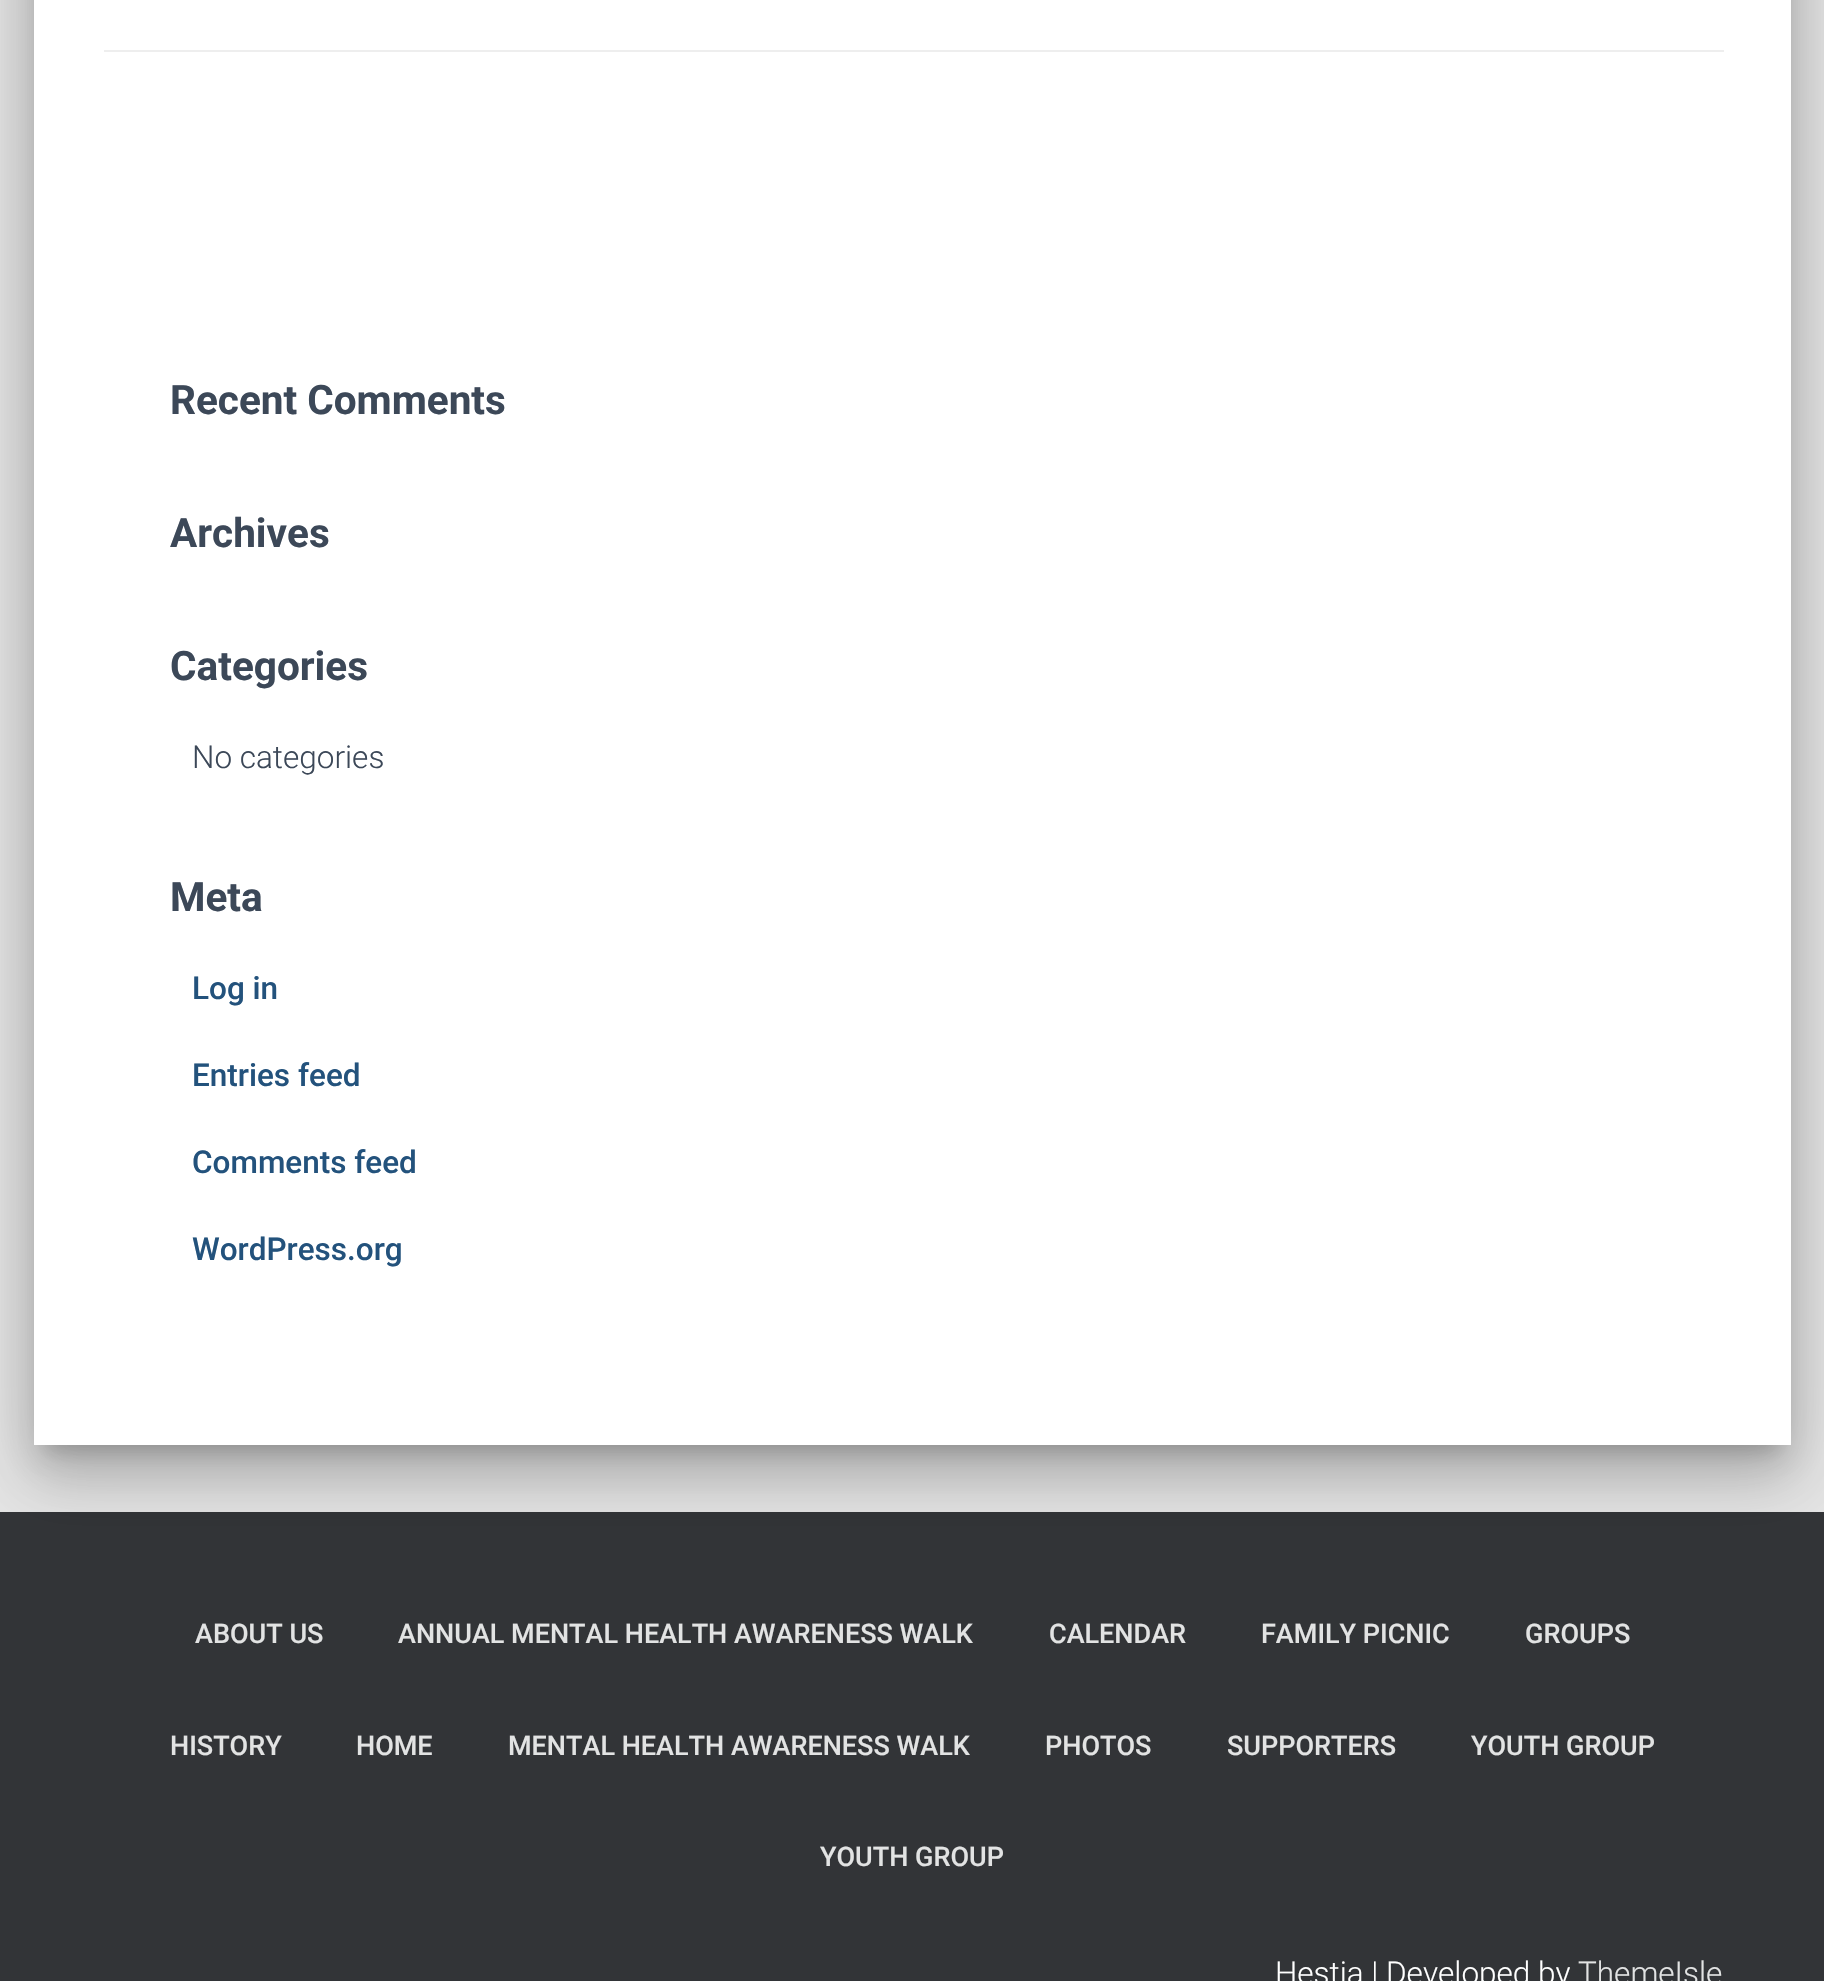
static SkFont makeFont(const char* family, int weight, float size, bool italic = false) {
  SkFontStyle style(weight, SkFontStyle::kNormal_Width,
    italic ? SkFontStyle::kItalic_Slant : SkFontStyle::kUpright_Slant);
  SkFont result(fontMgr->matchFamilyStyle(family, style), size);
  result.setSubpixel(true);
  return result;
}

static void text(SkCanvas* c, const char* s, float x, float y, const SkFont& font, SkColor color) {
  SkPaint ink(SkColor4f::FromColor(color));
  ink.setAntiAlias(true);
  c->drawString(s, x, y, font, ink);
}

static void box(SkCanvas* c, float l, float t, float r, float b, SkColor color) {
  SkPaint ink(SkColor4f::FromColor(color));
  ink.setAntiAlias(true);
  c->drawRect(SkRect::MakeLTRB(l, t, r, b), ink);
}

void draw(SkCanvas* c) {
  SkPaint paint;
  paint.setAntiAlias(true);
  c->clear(0xffe5e5e5);
  paint.setColor(0x33000000);
  paint.setMaskFilter(SkMaskFilter::MakeBlur(kNormal_SkBlurStyle, 11));
  c->drawRoundRect(SkRect::MakeLTRB(45, -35, 1780, 1451), 2, 2, paint);
  paint.setMaskFilter(nullptr);
  box(c, 0, 1512, 1824, 1981, 0xff323437);
  paint.setColor(0x1f000000);
  paint.setMaskFilter(SkMaskFilter::MakeBlur(kNormal_SkBlurStyle, 34));
  c->drawRoundRect(SkRect::MakeLTRB(23, -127, 1802, 1469), 25, 25, paint);
  paint.setMaskFilter(nullptr);
  paint.setColor(0x24000000);
  paint.setMaskFilter(SkMaskFilter::MakeBlur(kNormal_SkBlurStyle, 27));
  c->drawRoundRect(SkRect::MakeLTRB(29, -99, 1796, 1485), 18, 18, paint);
  paint.setMaskFilter(nullptr);
  box(c, 34, 0, 1791, 1445, 0xffffffff);
  box(c, 104, 50, 1724, 52, 0xffeeeeee);
  SkFont face1 = makeFont("Roboto", 700, 40.5f);
  text(c, "Recent Comments", 170, 414, face1, 0xff3c4858);
  text(c, "Archives", 170, 547, face1, 0xff3c4858);
  text(c, "Categories", 170, 680, face1, 0xff3c4858);
  SkFont face2 = makeFont("Roboto", 300, 31.5f);
  text(c, "No categories", 192, 768, face2, 0xff3c4858);
  text(c, "Meta", 170, 911, face1, 0xff3c4858);
  SkFont face3 = makeFont("Roboto", 500, 31.5f);
  text(c, "Log in", 192, 999, face3, 0xff23527c);
  text(c, "Entries feed", 192, 1086, face3, 0xff23527c);
  text(c, "Comments feed", 192, 1173, face3, 0xff23527c);
  text(c, "WordPress.org", 192, 1260, face3, 0xff23527c);
  SkFont face4 = makeFont("Roboto", 500, 27);
  text(c, "ABOUT US", 195, 1643, face4, 0xffe2e3e3);
  text(c, "ANNUAL MENTAL HEALTH AWARENESS WALK", 398, 1643, face4, 0xffe2e3e3);
  text(c, "CALENDAR", 1049, 1643, face4, 0xffe2e3e3);
  text(c, "FAMILY PICNIC", 1261, 1643, face4, 0xffe2e3e3);
  text(c, "GROUPS", 1525, 1643, face4, 0xffe2e3e3);
  text(c, "HISTORY", 170, 1755, face4, 0xffe2e3e3);
  text(c, "HOME", 356, 1755, face4, 0xffe2e3e3);
  text(c, "MENTAL HEALTH AWARENESS WALK", 508, 1755, face4, 0xffe2e3e3);
  text(c, "PHOTOS", 1045, 1755, face4, 0xffe2e3e3);
  text(c, "SUPPORTERS", 1227, 1755, face4, 0xffe2e3e3);
  text(c, "YOUTH GROUP", 1471, 1755, face4, 0xffe2e3e3);
  text(c, "YOUTH GROUP", 820, 1866, face4, 0xffe2e3e3);
  text(c, "Hestia | Developed by", 1275, 1984, face2, 0xffffffff);
  text(c, "ThemeIsle", 1578, 1984, face2, 0xffe2e3e3);
}
